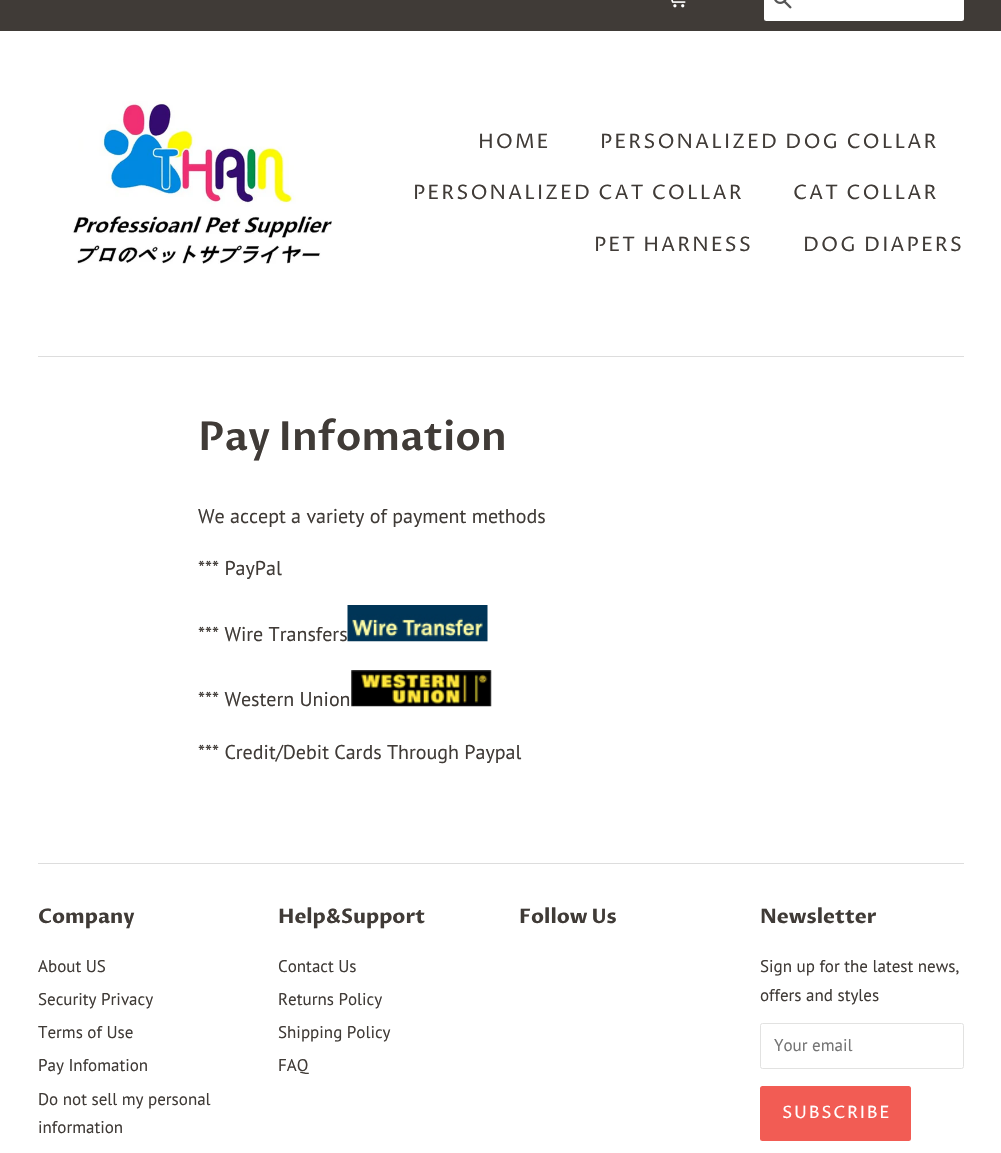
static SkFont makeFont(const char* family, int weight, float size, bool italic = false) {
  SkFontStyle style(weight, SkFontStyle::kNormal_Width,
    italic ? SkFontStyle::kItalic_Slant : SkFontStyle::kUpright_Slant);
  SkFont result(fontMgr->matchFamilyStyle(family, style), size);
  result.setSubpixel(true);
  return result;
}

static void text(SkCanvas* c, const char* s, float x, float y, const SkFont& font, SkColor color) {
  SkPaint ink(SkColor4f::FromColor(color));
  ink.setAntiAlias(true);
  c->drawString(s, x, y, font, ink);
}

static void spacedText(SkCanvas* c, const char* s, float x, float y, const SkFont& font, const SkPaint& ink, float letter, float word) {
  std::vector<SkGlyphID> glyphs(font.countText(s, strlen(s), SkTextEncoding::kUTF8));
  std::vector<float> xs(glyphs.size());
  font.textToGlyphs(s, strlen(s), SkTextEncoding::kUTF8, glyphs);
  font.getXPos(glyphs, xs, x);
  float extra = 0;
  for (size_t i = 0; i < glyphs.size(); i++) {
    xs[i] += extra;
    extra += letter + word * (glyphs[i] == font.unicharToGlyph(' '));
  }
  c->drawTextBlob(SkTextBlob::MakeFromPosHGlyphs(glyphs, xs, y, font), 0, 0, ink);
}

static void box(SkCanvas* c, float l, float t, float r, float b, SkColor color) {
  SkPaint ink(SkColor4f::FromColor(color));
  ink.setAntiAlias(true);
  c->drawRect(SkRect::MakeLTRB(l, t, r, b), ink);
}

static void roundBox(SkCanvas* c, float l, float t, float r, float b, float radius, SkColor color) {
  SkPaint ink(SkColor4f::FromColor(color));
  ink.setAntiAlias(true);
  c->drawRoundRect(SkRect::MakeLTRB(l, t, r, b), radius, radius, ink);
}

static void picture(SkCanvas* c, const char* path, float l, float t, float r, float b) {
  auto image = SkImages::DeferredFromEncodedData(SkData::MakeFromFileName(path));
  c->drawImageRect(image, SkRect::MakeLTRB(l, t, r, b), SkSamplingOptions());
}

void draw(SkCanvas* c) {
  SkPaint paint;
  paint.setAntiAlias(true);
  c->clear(0xffffffff);
  box(c, 0, 0, 1001, 31, 0xff403b37);
  picture(c, "img_01.png", 671, 0, 686, 8);
  roundBox(c, 764, -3, 964, 21, 2.5f, 0xffffffff);
  picture(c, "img_02.png", 774, 0, 792, 9);
  box(c, 38, 356, 964, 357, 0xffdddddd);
  picture(c, "img_03.png", 72, 101, 332, 264);
  SkFont face1 = makeFont("Proza Libre", 400, 20);
  paint.setColor(0xff403b37);
  spacedText(c, "HOME", 478, 148, face1, paint, 2, 0);
  spacedText(c, "PERSONALIZED DOG COLLAR", 600, 148, face1, paint, 2, 0);
  spacedText(c, "PERSONALIZED CAT COLLAR", 413, 199, face1, paint, 2, 0);
  spacedText(c, "CAT COLLAR", 793, 199, face1, paint, 2, 0);
  spacedText(c, "PET HARNESS", 594, 251, face1, paint, 2, 0);
  spacedText(c, "DOG DIAPERS", 803, 251, face1, paint, 2, 0);
  SkFont face2 = makeFont("Proza Libre", 600, 40);
  text(c, "Pay Infomation", 198, 450, face2, 0xff403b37);
  SkFont face3 = makeFont("PT Sans", 400, 20);
  text(c, "We accept a variety of payment methods", 198, 523, face3, 0xff403b37);
  text(c, "*** PayPal", 198, 575, face3, 0xff403b37);
  text(c, "*** Wire Transfers", 198, 641, face3, 0xff403b37);
  picture(c, "img_04.png", 347, 605, 488, 642);
  text(c, "*** Western Union", 198, 706, face3, 0xff403b37);
  picture(c, "img_05.png", 351, 670, 492, 707);
  text(c, "*** Credit/Debit Cards Through Paypal", 198, 759, face3, 0xff403b37);
  box(c, 38, 863, 964, 864, 0xffdddddd);
  SkFont face4 = makeFont("Proza Libre", 700, 20);
  text(c, "Company", 38, 923, face4, 0xff403b37);
  SkFont face5 = makeFont("PT Sans", 400, 17);
  text(c, "About US", 38, 972, face5, 0xff403b37);
  text(c, "Security Privacy", 38, 1005, face5, 0xff403b37);
  text(c, "Terms of Use", 38, 1038, face5, 0xff403b37);
  text(c, "Pay Infomation", 38, 1071, face5, 0xff403b37);
  text(c, "Do not sell my personal", 38, 1105, face5, 0xff403b37);
  text(c, "information", 38, 1133, face5, 0xff403b37);
  text(c, "Help&Support", 278, 923, face4, 0xff403b37);
  text(c, "Contact Us", 278, 972, face5, 0xff403b37);
  text(c, "Returns Policy", 278, 1005, face5, 0xff403b37);
  text(c, "Shipping Policy", 278, 1038, face5, 0xff403b37);
  text(c, "FAQ", 278, 1071, face5, 0xff403b37);
  text(c, "Follow Us", 519, 923, face4, 0xff403b37);
  text(c, "Newsletter", 760, 923, face4, 0xff403b37);
  text(c, "Sign up for the latest news,", 760, 972, face5, 0xff403b37);
  text(c, "offers and styles", 760, 1001, face5, 0xff403b37);
  paint.setStyle(SkPaint::kStroke_Style);
  paint.setStrokeWidth(1);
  paint.setColor(0xffe2e2e1);
  c->drawRoundRect(SkRect::MakeLTRB(760.5f, 1023.5f, 963.5f, 1068.5f), 2, 2, paint);
  text(c, "Your email", 774, 1051, face5, 0xff757575);
  roundBox(c, 760, 1086, 911, 1141, 2.5f, 0xfff25c54);
  SkFont face6 = makeFont("Proza Libre", 400, 17);
  paint.setStyle(SkPaint::kFill_Style);
  paint.setColor(0xffffffff);
  spacedText(c, "SUBSCRIBE", 782, 1118, face6, paint, 1.75f, 0);
}
